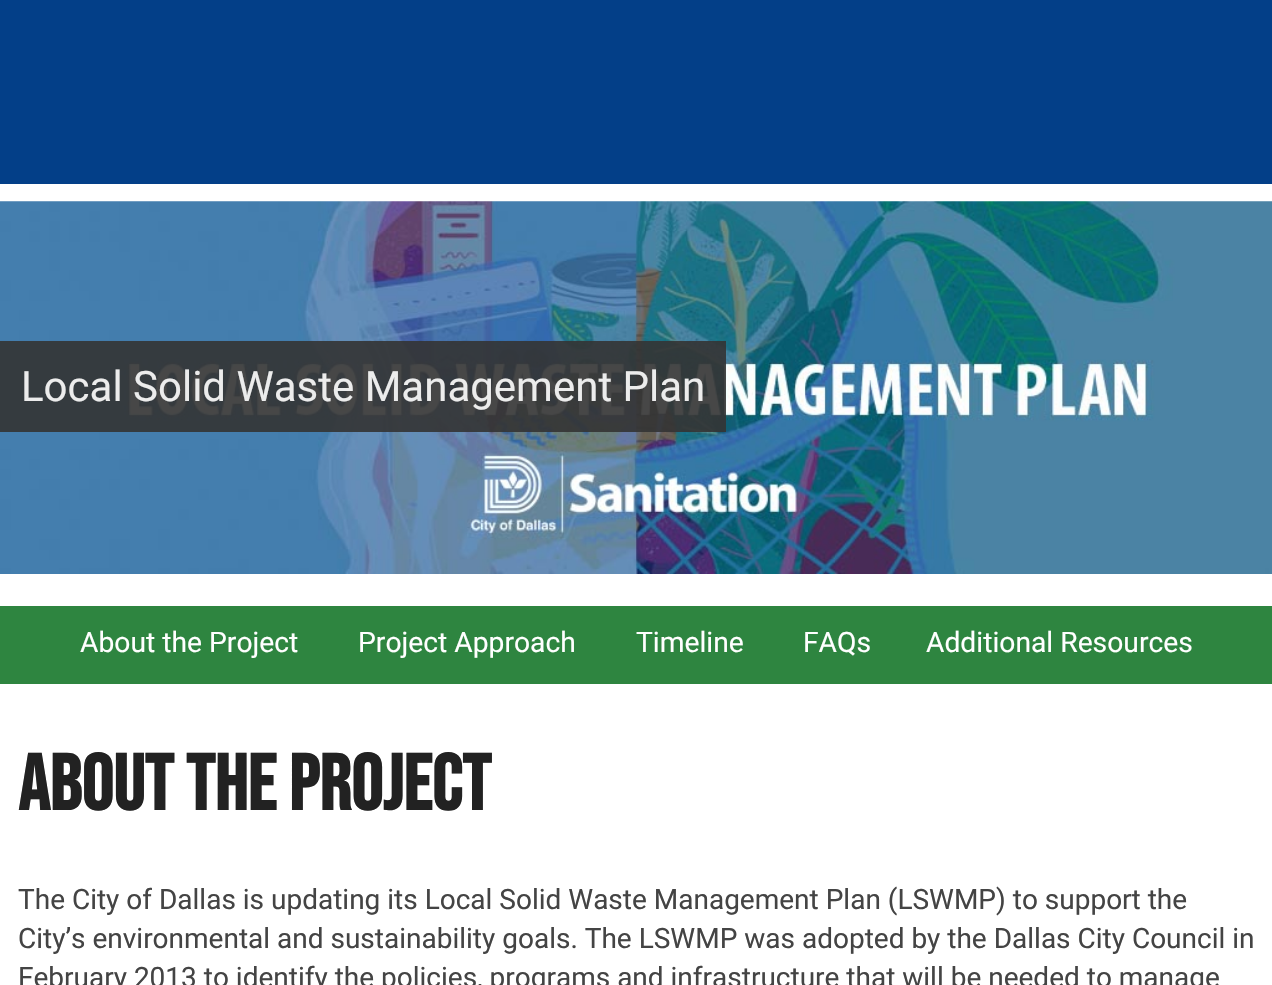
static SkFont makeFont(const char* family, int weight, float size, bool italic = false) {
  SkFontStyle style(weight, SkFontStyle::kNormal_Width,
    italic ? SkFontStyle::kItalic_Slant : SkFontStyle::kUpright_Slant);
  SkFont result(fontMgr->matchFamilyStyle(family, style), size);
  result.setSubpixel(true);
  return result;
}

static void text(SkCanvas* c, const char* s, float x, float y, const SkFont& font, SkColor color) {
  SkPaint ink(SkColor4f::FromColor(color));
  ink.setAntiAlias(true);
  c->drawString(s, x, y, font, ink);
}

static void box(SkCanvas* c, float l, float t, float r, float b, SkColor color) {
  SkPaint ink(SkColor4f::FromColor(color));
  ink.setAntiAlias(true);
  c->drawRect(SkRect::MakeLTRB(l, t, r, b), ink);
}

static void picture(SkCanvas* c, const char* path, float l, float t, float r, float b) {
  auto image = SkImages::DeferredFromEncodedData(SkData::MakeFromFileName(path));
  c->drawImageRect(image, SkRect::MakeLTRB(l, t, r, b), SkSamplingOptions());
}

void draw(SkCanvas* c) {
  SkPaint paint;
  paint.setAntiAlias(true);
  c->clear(0xffffffff);
  box(c, 0, 0, 1272, 184, 0xff033f88);
  picture(c, "img_01.png", 0, 201, 1272, 574);
  box(c, 0, 341, 726, 432, 0xe6333333);
  SkFont face1 = makeFont("Roboto", 400, 42);
  text(c, "Local Solid Waste Management Plan", 21, 401, face1, 0xffececec);
  box(c, 0, 606, 1272, 684, 0xff2e8540);
  SkFont face2 = makeFont("Roboto", 400, 28.25f);
  text(c, "About the Project", 80, 652, face2, 0xffffffff);
  text(c, "Project Approach", 358, 652, face2, 0xffffffff);
  text(c, "Timeline", 636, 652, face2, 0xffffffff);
  text(c, "FAQs", 803, 652, face2, 0xffffffff);
  text(c, "Additional Resources", 926, 652, face2, 0xffffffff);
  SkFont face3 = makeFont("Bebas Neue", 700, 78.75f);
  text(c, "About the Project", 18, 810, face3, 0xff222222);
  SkFont face4 = makeFont("Roboto", 400, 28);
  text(c, "The City of Dallas is updating its Local Solid Waste Management Plan (LSWMP) to support the", 18, 909, face4, 0xff444444);
  text(c, "City’s environmental and sustainability goals. The LSWMP was adopted by the Dallas City Council in", 18, 948, face4, 0xff444444);
  text(c, "February 2013 to identify the policies, programs and infrastructure that will be needed to manage", 18, 987, face4, 0xff444444);
}
